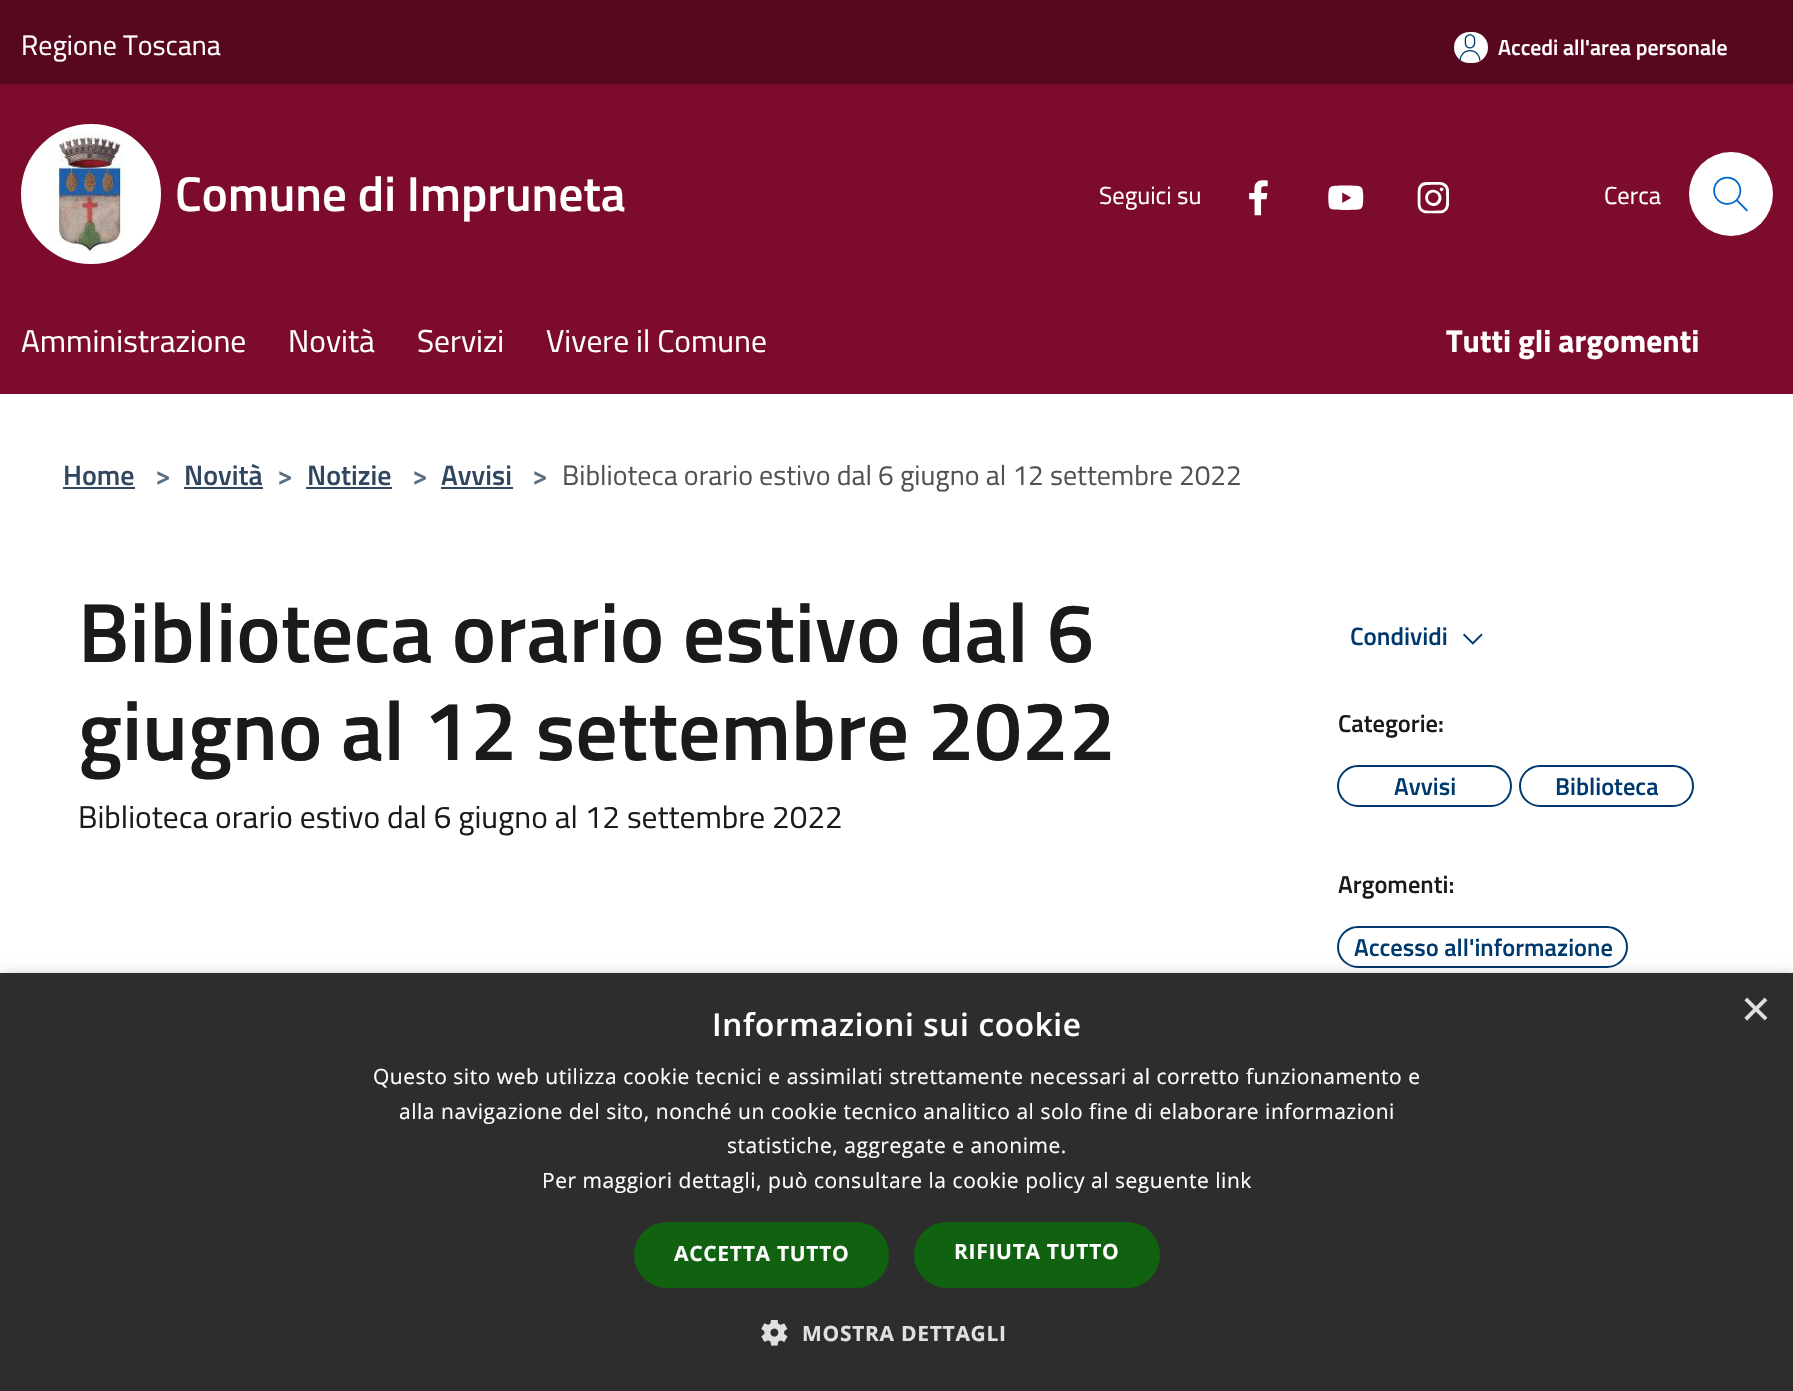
static SkFont makeFont(const char* family, int weight, float size, bool italic = false) {
  SkFontStyle style(weight, SkFontStyle::kNormal_Width,
    italic ? SkFontStyle::kItalic_Slant : SkFontStyle::kUpright_Slant);
  SkFont result(fontMgr->matchFamilyStyle(family, style), size);
  result.setSubpixel(true);
  return result;
}

static void text(SkCanvas* c, const char* s, float x, float y, const SkFont& font, SkColor color) {
  SkPaint ink(SkColor4f::FromColor(color));
  ink.setAntiAlias(true);
  c->drawString(s, x, y, font, ink);
}

static void spacedText(SkCanvas* c, const char* s, float x, float y, const SkFont& font, const SkPaint& ink, float letter, float word) {
  std::vector<SkGlyphID> glyphs(font.countText(s, strlen(s), SkTextEncoding::kUTF8));
  std::vector<float> xs(glyphs.size());
  font.textToGlyphs(s, strlen(s), SkTextEncoding::kUTF8, glyphs);
  font.getXPos(glyphs, xs, x);
  float extra = 0;
  for (size_t i = 0; i < glyphs.size(); i++) {
    xs[i] += extra;
    extra += letter + word * (glyphs[i] == font.unicharToGlyph(' '));
  }
  c->drawTextBlob(SkTextBlob::MakeFromPosHGlyphs(glyphs, xs, y, font), 0, 0, ink);
}

static void box(SkCanvas* c, float l, float t, float r, float b, SkColor color) {
  SkPaint ink(SkColor4f::FromColor(color));
  ink.setAntiAlias(true);
  c->drawRect(SkRect::MakeLTRB(l, t, r, b), ink);
}

static void roundBox(SkCanvas* c, float l, float t, float r, float b, float radius, SkColor color) {
  SkPaint ink(SkColor4f::FromColor(color));
  ink.setAntiAlias(true);
  c->drawRoundRect(SkRect::MakeLTRB(l, t, r, b), radius, radius, ink);
}

static void picture(SkCanvas* c, const char* path, float l, float t, float r, float b) {
  auto image = SkImages::DeferredFromEncodedData(SkData::MakeFromFileName(path));
  c->drawImageRect(image, SkRect::MakeLTRB(l, t, r, b), SkSamplingOptions());
}

void draw(SkCanvas* c) {
  SkPaint paint;
  paint.setAntiAlias(true);
  c->clear(0xffffffff);
  box(c, 0, 0, 1793, 84, 0xff57071e);
  SkFont face1 = makeFont("Titillium Web", 400, 28);
  text(c, "Regione Toscana", 21, 55, face1, 0xffffffff);
  roundBox(c, 1454, 32, 1488, 63, 15.5f, 0xffffffff);
  picture(c, "img_01.png", 1459, 34, 1481, 61);
  SkFont face2 = makeFont("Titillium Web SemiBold", 600, 21.75f);
  text(c, "Accedi all'area personale", 1498, 55, face2, 0xffffffff);
  box(c, 0, 84, 1793, 394, 0xff7d0b2b);
  paint.setColor(0xffffffff);
  c->drawCircle(91, 194, 69, paint);
  paint.setStyle(SkPaint::kStroke_Style);
  paint.setStrokeWidth(2);
  c->drawCircle(91, 194, 69, paint);
  picture(c, "img_02.png", 51, 133, 125, 257);
  SkFont face3 = makeFont("Titillium Web SemiBold", 600, 49);
  text(c, "Comune di Impruneta", 175, 211, face3, 0xffffffff);
  SkFont face4 = makeFont("Titillium Web", 400, 24.5f);
  text(c, "Seguici su", 1099, 204, face4, 0xffffffff);
  picture(c, "img_03.png", 1249, 180, 1268, 216);
  picture(c, "img_04.png", 1328, 185, 1364, 210);
  picture(c, "img_05.png", 1417, 182, 1449, 214);
  text(c, "Cerca", 1604, 204, face4, 0xffffffff);
  paint.setStyle(SkPaint::kFill_Style);
  c->drawCircle(1731, 194, 42, paint);
  picture(c, "img_06.png", 1713, 176, 1748, 212);
  SkFont face5 = makeFont("Titillium Web", 400, 31.5f);
  text(c, "Amministrazione", 21, 352, face5, 0xffffffff);
  text(c, "Novità", 288, 352, face5, 0xffffffff);
  text(c, "Servizi", 417, 352, face5, 0xffffffff);
  text(c, "Vivere il Comune", 546, 352, face5, 0xffffffff);
  SkFont face6 = makeFont("Titillium Web", 700, 31.5f);
  text(c, "Tutti gli argomenti", 1446, 352, face6, 0xffffffff);
  SkFont face7 = makeFont("Titillium Web SemiBold", 600, 28);
  text(c, "Home", 63, 485, face7, 0xff30475f);
  box(c, 63, 487, 135, 489, 0xff30475f);
  text(c, ">", 155, 485, face7, 0xff5d7083);
  text(c, "Novità", 184, 485, face7, 0xff30475f);
  box(c, 184, 487, 263, 489, 0xff30475f);
  text(c, ">", 277, 485, face7, 0xff5d7083);
  text(c, "Notizie", 307, 485, face7, 0xff30475f);
  box(c, 306, 487, 392, 489, 0xff30475f);
  text(c, ">", 412, 485, face7, 0xff5d7083);
  text(c, "Avvisi", 441, 485, face7, 0xff30475f);
  box(c, 441, 487, 513, 489, 0xff30475f);
  text(c, ">", 532, 485, face7, 0xff5d7083);
  text(c, "Biblioteca orario estivo dal 6 giugno al 12 settembre 2022", 562, 485, face1, 0xff525252);
  SkFont face8 = makeFont("Titillium Web SemiBold", 600, 84);
  text(c, "Biblioteca orario estivo dal 6", 78, 662, face8, 0xff1a1a1a);
  text(c, "giugno al 12 settembre 2022", 78, 760, face8, 0xff1a1a1a);
  text(c, "Biblioteca orario estivo dal 6 giugno al 12 settembre 2022", 78, 828, face5, 0xff1a1a1a);
  SkFont face9 = makeFont("Titillium Web SemiBold", 600, 25);
  text(c, "Condividi", 1350, 645, face9, 0xff00396e);
  picture(c, "img_07.png", 1463, 633, 1483, 645);
  SkFont face10 = makeFont("Titillium Web SemiBold", 600, 24.5f);
  text(c, "Categorie:", 1338, 732, face10, 0xff1a1a1a);
  paint.setStyle(SkPaint::kStroke_Style);
  paint.setColor(0xff00396e);
  c->drawRoundRect(SkRect::MakeLTRB(1338, 766, 1511, 806), 20, 20, paint);
  text(c, "Avvisi", 1394, 795, face10, 0xff00396e);
  c->drawRoundRect(SkRect::MakeLTRB(1520, 766, 1693, 806), 20, 20, paint);
  text(c, "Biblioteca", 1555, 795, face10, 0xff00396e);
  text(c, "Argomenti:", 1338, 893, face10, 0xff1a1a1a);
  c->drawRoundRect(SkRect::MakeLTRB(1338, 927, 1627, 967), 20, 20, paint);
  text(c, "Accesso all'informazione", 1354, 956, face10, 0xff00396e);
  paint.setStyle(SkPaint::kFill_Style);
  paint.setColor(0x59000000);
  paint.setMaskFilter(SkMaskFilter::MakeBlur(kNormal_SkBlurStyle, 7));
  c->drawRect(SkRect::MakeLTRB(2, 977, 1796, 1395), paint);
  paint.setMaskFilter(nullptr);
  box(c, 0, 973, 1793, 1391, 0xff2d2d2d);
  SkFont face11 = makeFont("Open Sans", 600, 31.5f);
  paint.setColor(0xffffffff);
  spacedText(c, "Informazioni sui cookie", 712, 1036, face11, paint, 0.7f, 0);
  SkFont face12 = makeFont("Liberation Sans", 400, 51);
  text(c, "×", 1741, 1026, face12, 0xffe0e0e0);
  SkFont face13 = makeFont("Open Sans", 400, 21);
  spacedText(c, "Questo sito web utilizza cookie tecnici e assimilati strettamente necessari al corretto funzionamento e", 373, 1084, face13, paint, 0.53f, 0);
  spacedText(c, "alla navigazione del sito, nonché un cookie tecnico analitico al solo fine di elaborare informazioni", 399, 1119, face13, paint, 0.53f, 0);
  spacedText(c, "statistiche, aggregate e anonime.", 727, 1153, face13, paint, 0.53f, 0);
  spacedText(c, "Per maggiori dettagli, può consultare la cookie policy al seguente link", 542, 1188, face13, paint, 0.53f, 0);
  roundBox(c, 634, 1222, 889, 1288, 33, 0xff106110);
  SkFont face14 = makeFont("Open Sans", 700, 21);
  spacedText(c, "ACCETTA TUTTO", 674, 1261, face14, paint, 0.7f, 0);
  roundBox(c, 914, 1222, 1160, 1288, 33, 0xff106110);
  spacedText(c, "RIFIUTA TUTTO", 954, 1259, face14, paint, 0.7f, 0);
  picture(c, "img_08.png", 761, 1320, 788, 1346);
  paint.setColor(0xffe0e0e0);
  spacedText(c, "MOSTRA DETTAGLI", 802, 1341, face14, paint, 0.7f, 0);
}
